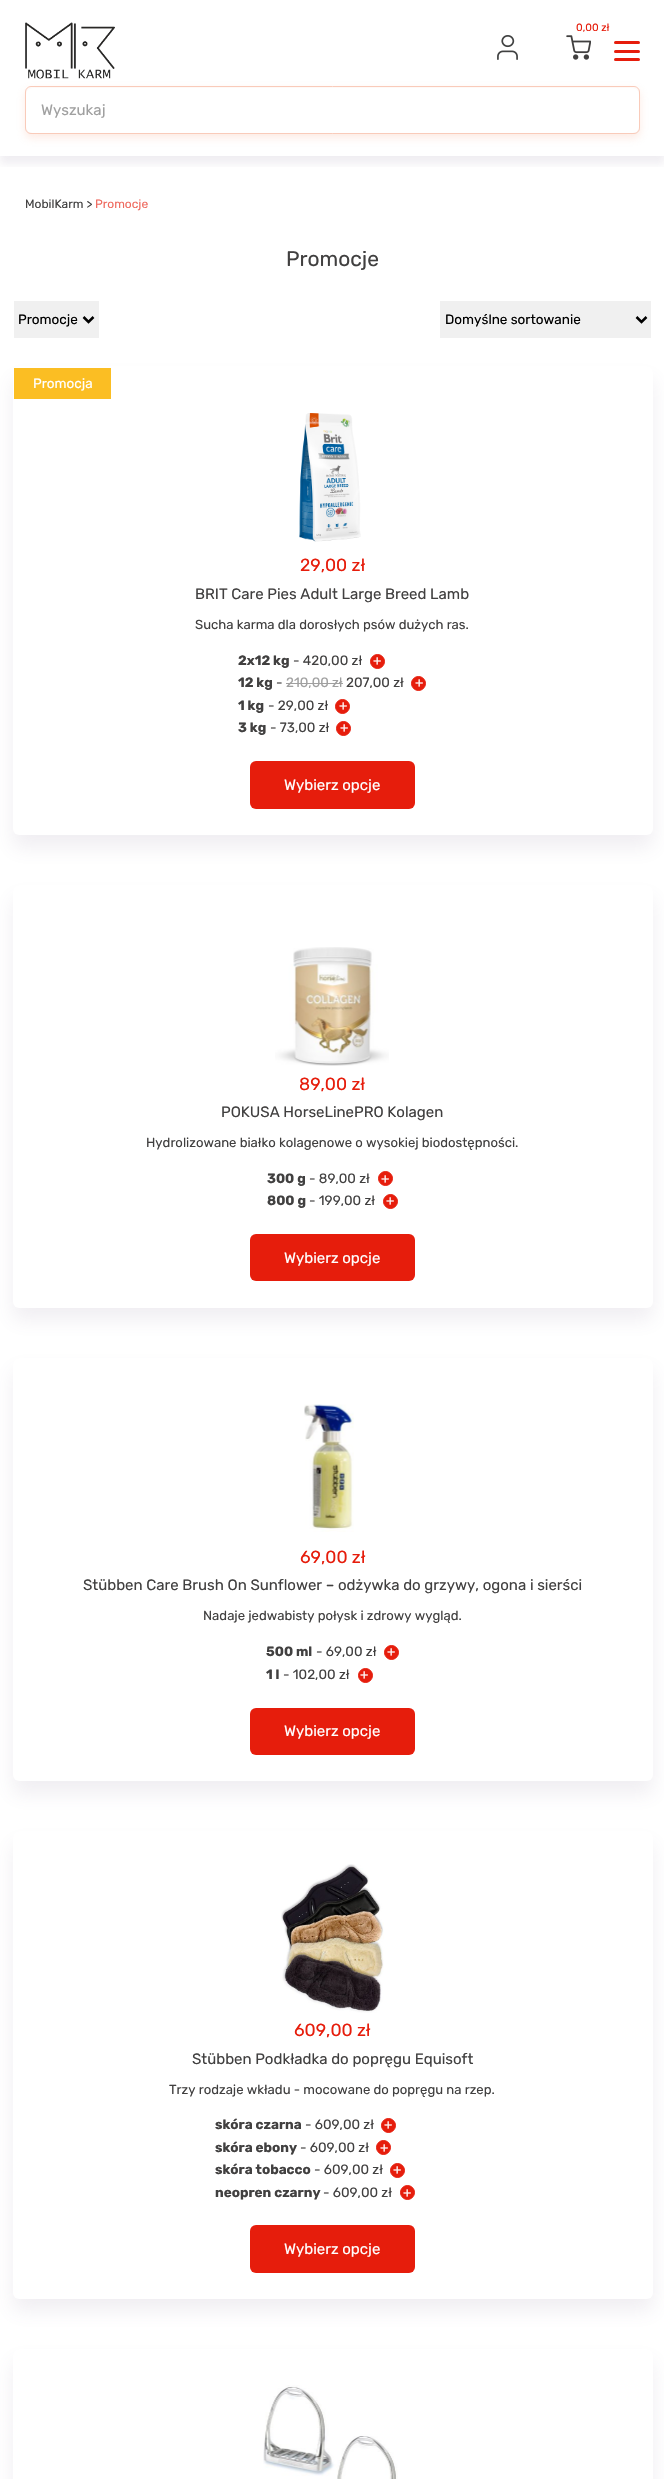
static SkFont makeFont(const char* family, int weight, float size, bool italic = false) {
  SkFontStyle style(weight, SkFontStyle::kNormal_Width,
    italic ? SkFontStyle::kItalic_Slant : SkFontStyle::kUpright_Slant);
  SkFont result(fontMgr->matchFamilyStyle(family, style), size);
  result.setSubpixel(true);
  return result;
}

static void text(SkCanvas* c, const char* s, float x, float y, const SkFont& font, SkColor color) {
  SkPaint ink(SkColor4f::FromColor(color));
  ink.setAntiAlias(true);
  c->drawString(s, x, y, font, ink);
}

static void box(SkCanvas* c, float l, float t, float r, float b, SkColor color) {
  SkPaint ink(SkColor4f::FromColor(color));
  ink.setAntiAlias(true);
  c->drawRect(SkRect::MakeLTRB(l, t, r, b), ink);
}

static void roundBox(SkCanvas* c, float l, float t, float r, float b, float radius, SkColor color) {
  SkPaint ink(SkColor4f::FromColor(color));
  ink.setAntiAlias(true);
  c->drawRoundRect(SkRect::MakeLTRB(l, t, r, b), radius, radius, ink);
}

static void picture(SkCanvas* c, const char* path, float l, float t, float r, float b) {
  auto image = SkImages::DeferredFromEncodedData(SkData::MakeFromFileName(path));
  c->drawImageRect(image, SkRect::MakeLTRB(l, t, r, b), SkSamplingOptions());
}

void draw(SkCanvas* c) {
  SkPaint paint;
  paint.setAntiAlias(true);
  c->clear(0xffffffff);
  c->save();
  c->clipRect(SkRect::MakeLTRB(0, 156, 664, 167));
  paint.setColor(0x1a6c567b);
  paint.setMaskFilter(SkMaskFilter::MakeBlur(kNormal_SkBlurStyle, 4));
  c->drawRect(SkRect::MakeLTRB(0, 8, 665, 164), paint);
  paint.setMaskFilter(nullptr);
  c->restore();
  picture(c, "img_01.png", 25, 22, 115, 79);
  SkFont face1 = makeFont("Rubik", 400, 10.5f);
  text(c, "0,00 zł", 576, 31, face1, 0xffe61d0c);
  picture(c, "img_02.png", 566, 35, 591, 60);
  picture(c, "img_03.png", 497, 35, 518, 60);
  roundBox(c, 614, 41, 640, 44, 1.5f, 0xffe61d0c);
  roundBox(c, 614, 50, 640, 53, 1.5f, 0xffe61d0c);
  roundBox(c, 614, 58, 640, 61, 1.5f, 0xffe61d0c);
  paint.setColor(0x42f8b195);
  paint.setMaskFilter(SkMaskFilter::MakeBlur(kNormal_SkBlurStyle, 4));
  c->drawRoundRect(SkRect::MakeLTRB(25, 90, 640, 138), 6, 6, paint);
  paint.setMaskFilter(nullptr);
  paint.setStyle(SkPaint::kStroke_Style);
  paint.setStrokeWidth(1);
  paint.setColor(0xfff9cbba);
  c->drawRoundRect(SkRect::MakeLTRB(25.5f, 86.5f, 639.5f, 133.5f), 5.5f, 5.5f, paint);
  c->save();
  c->clipPath(SkPathBuilder().moveTo(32, 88).lineTo(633, 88).cubicTo(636.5f, 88, 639, 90.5f, 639, 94).lineTo(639, 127).cubicTo(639, 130.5f, 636.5f, 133, 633, 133).lineTo(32, 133).cubicTo(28.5f, 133, 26, 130.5f, 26, 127).lineTo(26, 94).cubicTo(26, 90.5f, 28.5f, 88, 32, 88).close().detach(), true);
  paint.setStyle(SkPaint::kFill_Style);
  paint.setColor(0x29f8b195);
  paint.setMaskFilter(SkMaskFilter::MakeBlur(kNormal_SkBlurStyle, 4));
  c->drawRoundRect(SkRect::MakeLTRB(26, 91, 639, 136), 6, 6, paint);
  paint.setMaskFilter(nullptr);
  c->restore();
  roundBox(c, 26, 88, 639, 133, 6, 0xffffffff);
  SkFont face2 = makeFont("Rubik", 400, 15);
  text(c, "Wyszukaj", 41, 115, face2, 0xffa0a0a0);
  SkFont face3 = makeFont("Rubik", 400, 12);
  text(c, "MobilKarm >", 25, 208, face3, 0xff414040);
  text(c, "Promocje", 95, 208, face3, 0xffef6a5f);
  SkFont face4 = makeFont("Rubik", 400, 21);
  text(c, "Promocje", 286, 266, face4, 0xff414040);
  box(c, 14, 301, 99, 338, 0xfff0f0f0);
  paint.setStyle(SkPaint::kStroke_Style);
  paint.setStrokeWidth(2.5f);
  paint.setColor(0xff000000);
  c->drawPath(SkPathBuilder().moveTo(83.5f, 317).lineTo(88.5f, 322).lineTo(93.5f, 317).detach(), paint);
  SkFont face5 = makeFont("Rubik", 400, 13.5f);
  text(c, "Promocje", 18, 324, face5, 0xff000000);
  box(c, 440, 301, 651, 338, 0xfff0f0f0);
  c->drawPath(SkPathBuilder().moveTo(636.5f, 317).lineTo(641.5f, 322).lineTo(646.5f, 317).detach(), paint);
  text(c, "Domyślne sortowanie", 445, 324, face5, 0xff000000);
  paint.setStyle(SkPaint::kFill_Style);
  paint.setColor(0x1a6c567b);
  paint.setMaskFilter(SkMaskFilter::MakeBlur(kNormal_SkBlurStyle, 9.5f));
  c->drawRoundRect(SkRect::MakeLTRB(13, 379, 653, 848), 6, 6, paint);
  paint.setMaskFilter(nullptr);
  roundBox(c, 13, 366, 653, 835, 6, 0xffffffff);
  box(c, 14, 368, 111, 399, 0xfffbbe23);
  text(c, "Promocja", 33, 388, face5, 0xffffffff);
  picture(c, "img_04.png", 299, 413, 361, 542);
  SkFont face6 = makeFont("Rubik", 400, 17.5f);
  text(c, "29,00 zł", 300, 571, face6, 0xffe61d0c);
  text(c, "BRIT Care Pies Adult Large Breed Lamb", 195, 599, face2, 0xff414040);
  SkFont face7 = makeFont("Rubik", 400, 13.1f);
  text(c, "Sucha karma dla dorosłych psów dużych ras.", 195, 629, face7, 0xff414040);
  SkFont face8 = makeFont("Rubik", 700, 13.5f);
  text(c, "2x12 kg", 238, 665, face8, 0xff414040);
  text(c, "- 420,00 zł", 293, 665, face5, 0xff414040);
  paint.setColor(0xffe61d0c);
  c->drawCircle(377.5f, 661.5f, 7, paint);
  paint.setStyle(SkPaint::kStroke_Style);
  paint.setStrokeWidth(1);
  c->drawCircle(377.5f, 661.5f, 7, paint);
  text(c, "+", 373, 665, face5, 0xffffffff);
  text(c, "12 kg", 238, 687, face8, 0xff414040);
  text(c, "-", 276, 687, face5, 0xff414040);
  text(c, "210,00", 286, 687, face5, 0xffa0a0a0);
  box(c, 286, 683, 333, 684, 0xffa0a0a0);
  text(c, "zł", 332, 687, face5, 0xffa0a0a0);
  box(c, 333, 683, 343, 684, 0xffa0a0a0);
  text(c, "207,00 zł", 346, 687, face5, 0xff414040);
  paint.setStyle(SkPaint::kFill_Style);
  c->drawCircle(418.5f, 683.5f, 7, paint);
  paint.setStyle(SkPaint::kStroke_Style);
  c->drawCircle(418.5f, 683.5f, 7, paint);
  text(c, "+", 415, 687, face5, 0xffffffff);
  text(c, "1 kg", 238, 710, face8, 0xff414040);
  text(c, "- 29,00 zł", 268, 710, face5, 0xff414040);
  paint.setStyle(SkPaint::kFill_Style);
  c->drawCircle(342.5f, 706.5f, 7, paint);
  paint.setStyle(SkPaint::kStroke_Style);
  c->drawCircle(342.5f, 706.5f, 7, paint);
  text(c, "+", 339, 710, face5, 0xffffffff);
  text(c, "3 kg", 238, 732, face8, 0xff414040);
  text(c, "- 73,00 zł", 270, 732, face5, 0xff414040);
  paint.setStyle(SkPaint::kFill_Style);
  c->drawCircle(343.5f, 728.5f, 7, paint);
  paint.setStyle(SkPaint::kStroke_Style);
  c->drawCircle(343.5f, 728.5f, 7, paint);
  text(c, "+", 340, 732, face5, 0xffffffff);
  roundBox(c, 250, 761, 415, 809, 6, 0xffe61d0c);
  text(c, "Wybierz opcje", 284, 790, face2, 0xffffffff);
  paint.setStyle(SkPaint::kFill_Style);
  paint.setColor(0x1a6c567b);
  paint.setMaskFilter(SkMaskFilter::MakeBlur(kNormal_SkBlurStyle, 9.5f));
  c->drawRoundRect(SkRect::MakeLTRB(13, 898, 653, 1320), 6, 6, paint);
  paint.setMaskFilter(nullptr);
  roundBox(c, 13, 885, 653, 1308, 6, 0xffffffff);
  picture(c, "img_05.png", 275, 947, 389, 1066);
  text(c, "89,00 zł", 299, 1090, face6, 0xffe61d0c);
  text(c, "POKUSA HorseLinePRO Kolagen", 221, 1117, face2, 0xff414040);
  text(c, "Hydrolizowane białko kolagenowe o wysokiej biodostępności.", 146, 1147, face7, 0xff414040);
  text(c, "300 g", 267, 1183, face8, 0xff414040);
  text(c, "- 89,00 zł", 309, 1183, face5, 0xff414040);
  paint.setColor(0xffe61d0c);
  c->drawCircle(385.5f, 1178.5f, 7, paint);
  paint.setStyle(SkPaint::kStroke_Style);
  c->drawCircle(385.5f, 1178.5f, 7, paint);
  text(c, "+", 381, 1183, face5, 0xffffffff);
  text(c, "800 g", 267, 1205, face8, 0xff414040);
  text(c, "- 199,00 zł", 309, 1205, face5, 0xff414040);
  paint.setStyle(SkPaint::kFill_Style);
  c->drawCircle(390.5f, 1201.5f, 7, paint);
  paint.setStyle(SkPaint::kStroke_Style);
  c->drawCircle(390.5f, 1201.5f, 7, paint);
  text(c, "+", 386, 1205, face5, 0xffffffff);
  roundBox(c, 250, 1234, 415, 1281, 6, 0xffe61d0c);
  text(c, "Wybierz opcje", 284, 1263, face2, 0xffffffff);
  paint.setStyle(SkPaint::kFill_Style);
  paint.setColor(0x1a6c567b);
  paint.setMaskFilter(SkMaskFilter::MakeBlur(kNormal_SkBlurStyle, 9.5f));
  c->drawRoundRect(SkRect::MakeLTRB(13, 1370, 653, 1794), 6, 6, paint);
  paint.setMaskFilter(nullptr);
  roundBox(c, 13, 1358, 653, 1781, 6, 0xffffffff);
  picture(c, "img_06.png", 304, 1404, 354, 1532);
  text(c, "69,00 zł", 300, 1563, face6, 0xffe61d0c);
  text(c, "Stübben Care Brush On Sunflower – odżywka do grzywy, ogona i sierści", 83, 1590, face2, 0xff414040);
  text(c, "Nadaje jedwabisty połysk i zdrowy wygląd.", 203, 1620, face7, 0xff414040);
  text(c, "500 ml", 266, 1656, face8, 0xff414040);
  text(c, "- 69,00 zł", 316, 1656, face5, 0xff414040);
  paint.setColor(0xffe61d0c);
  c->drawCircle(391.5f, 1652.5f, 7, paint);
  paint.setStyle(SkPaint::kStroke_Style);
  c->drawCircle(391.5f, 1652.5f, 7, paint);
  text(c, "+", 387, 1656, face5, 0xffffffff);
  text(c, "1 l", 266, 1679, face8, 0xff414040);
  text(c, "- 102,00 zł", 283, 1679, face5, 0xff414040);
  paint.setStyle(SkPaint::kFill_Style);
  c->drawCircle(365.5f, 1675.5f, 7, paint);
  paint.setStyle(SkPaint::kStroke_Style);
  c->drawCircle(365.5f, 1675.5f, 7, paint);
  text(c, "+", 360, 1679, face5, 0xffffffff);
  roundBox(c, 250, 1708, 415, 1755, 6, 0xffe61d0c);
  text(c, "Wybierz opcje", 284, 1736, face2, 0xffffffff);
  paint.setStyle(SkPaint::kFill_Style);
  paint.setColor(0x1a6c567b);
  paint.setMaskFilter(SkMaskFilter::MakeBlur(kNormal_SkBlurStyle, 9.5f));
  c->drawRoundRect(SkRect::MakeLTRB(13, 1844, 653, 2311), 6, 6, paint);
  paint.setMaskFilter(nullptr);
  roundBox(c, 13, 1831, 653, 2299, 6, 0xffffffff);
  picture(c, "img_07.png", 281, 1864, 384, 2013);
  text(c, "609,00 zł", 294, 2036, face6, 0xffe61d0c);
  text(c, "Stübben Podkładka do popręgu Equisoft", 192, 2064, face2, 0xff414040);
  text(c, "Trzy rodzaje wkładu - mocowane do popręgu na rzep.", 169, 2094, face7, 0xff414040);
  text(c, "skóra czarna", 215, 2129, face8, 0xff414040);
  text(c, "- 609,00 zł", 305, 2129, face5, 0xff414040);
  paint.setColor(0xffe61d0c);
  c->drawCircle(388.5f, 2125.5f, 7, paint);
  paint.setStyle(SkPaint::kStroke_Style);
  c->drawCircle(388.5f, 2125.5f, 7, paint);
  text(c, "+", 384, 2129, face5, 0xffffffff);
  text(c, "skóra ebony", 215, 2152, face8, 0xff414040);
  text(c, "- 609,00 zł", 300, 2152, face5, 0xff414040);
  paint.setStyle(SkPaint::kFill_Style);
  c->drawCircle(383.5f, 2147.5f, 7, paint);
  paint.setStyle(SkPaint::kStroke_Style);
  c->drawCircle(383.5f, 2147.5f, 7, paint);
  text(c, "+", 380, 2152, face5, 0xffffffff);
  text(c, "skóra tobacco", 215, 2174, face8, 0xff414040);
  text(c, "- 609,00 zł", 314, 2174, face5, 0xff414040);
  paint.setStyle(SkPaint::kFill_Style);
  c->drawCircle(397.5f, 2170.5f, 7, paint);
  paint.setStyle(SkPaint::kStroke_Style);
  c->drawCircle(397.5f, 2170.5f, 7, paint);
  text(c, "+", 393, 2174, face5, 0xffffffff);
  text(c, "neopren czarny", 215, 2197, face8, 0xff414040);
  text(c, "- 609,00 zł", 323, 2197, face5, 0xff414040);
  paint.setStyle(SkPaint::kFill_Style);
  c->drawCircle(407.5f, 2192.5f, 7, paint);
  paint.setStyle(SkPaint::kStroke_Style);
  c->drawCircle(407.5f, 2192.5f, 7, paint);
  text(c, "+", 403, 2197, face5, 0xffffffff);
  roundBox(c, 250, 2225, 415, 2273, 6, 0xffe61d0c);
  text(c, "Wybierz opcje", 284, 2254, face2, 0xffffffff);
  paint.setStyle(SkPaint::kFill_Style);
  paint.setColor(0x1a6c567b);
  paint.setMaskFilter(SkMaskFilter::MakeBlur(kNormal_SkBlurStyle, 9.5f));
  c->drawRoundRect(SkRect::MakeLTRB(13, 2361, 653, 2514), 6, 6, paint);
  paint.setMaskFilter(nullptr);
  roundBox(c, 13, 2349, 653, 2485, 6, 0xffffffff);
  picture(c, "img_08.png", 263, 2385, 398, 2479);
}
